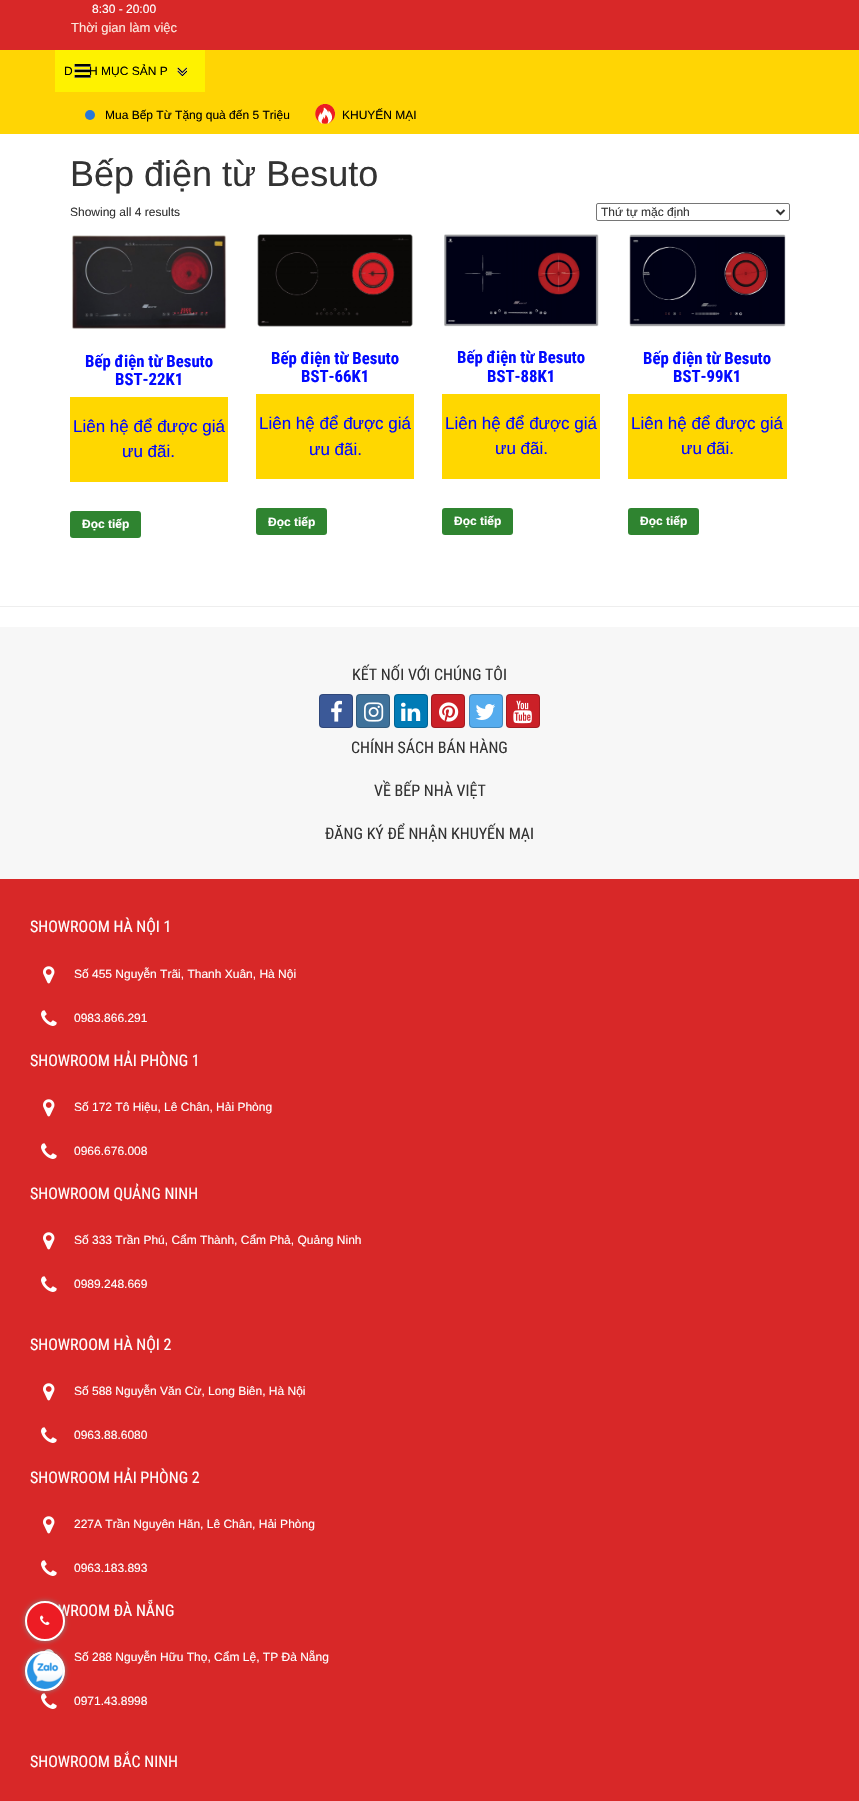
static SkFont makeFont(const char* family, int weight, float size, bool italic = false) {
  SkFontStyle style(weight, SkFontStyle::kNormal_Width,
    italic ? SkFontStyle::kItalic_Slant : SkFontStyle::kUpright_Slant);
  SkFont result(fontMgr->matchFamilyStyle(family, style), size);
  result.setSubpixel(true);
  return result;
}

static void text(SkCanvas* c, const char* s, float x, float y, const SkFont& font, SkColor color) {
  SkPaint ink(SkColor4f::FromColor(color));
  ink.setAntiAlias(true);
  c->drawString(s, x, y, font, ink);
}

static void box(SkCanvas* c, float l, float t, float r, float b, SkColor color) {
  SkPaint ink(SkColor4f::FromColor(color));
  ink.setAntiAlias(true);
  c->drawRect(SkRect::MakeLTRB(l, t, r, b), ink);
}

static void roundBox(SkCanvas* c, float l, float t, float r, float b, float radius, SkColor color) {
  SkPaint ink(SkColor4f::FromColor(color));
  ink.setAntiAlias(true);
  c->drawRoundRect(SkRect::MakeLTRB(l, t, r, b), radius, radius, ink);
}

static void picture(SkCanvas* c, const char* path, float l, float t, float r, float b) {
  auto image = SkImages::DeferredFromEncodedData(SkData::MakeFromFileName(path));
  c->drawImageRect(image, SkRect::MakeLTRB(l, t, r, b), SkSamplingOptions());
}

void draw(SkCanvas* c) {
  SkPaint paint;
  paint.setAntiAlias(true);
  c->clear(0xffffffff);
  box(c, 0, 0, 859, 50, 0xffd82828);
  SkFont face1 = makeFont("Liberation Sans", 400, 12);
  text(c, "8:30 - 20:00", 92, 13, face1, 0xffffffff);
  SkFont face2 = makeFont("Liberation Sans", 400, 13);
  text(c, "Thời gian làm việc", 71, 32, face2, 0xfffde7dd);
  box(c, 0, 50, 859, 134, 0xffffd504);
  box(c, 55, 50, 205, 92, 0xfffef200);
  picture(c, "img_01.png", 74, 64, 95, 80);
  text(c, "D", 64, 75, face1, 0xff000000);
  text(c, "H MỤC SẢN P", 89, 75, face1, 0xff000000);
  picture(c, "img_02.png", 174, 65, 190, 77);
  paint.setColor(0xff2878d7);
  c->drawCircle(90, 115, 5, paint);
  text(c, "Mua Bếp Từ Tặng quà đến 5 Triệu", 105, 119, face1, 0xff000000);
  picture(c, "img_03.png", 315, 104, 335, 124);
  text(c, "KHUYẾN MẠI", 342, 119, face1, 0xff000000);
  SkFont face3 = makeFont("Liberation Sans", 400, 36);
  text(c, "Bếp điện từ Besuto", 70, 186, face3, 0xff333333);
  text(c, "Showing all 4 results", 70, 216, face1, 0xff333333);
  paint.setStyle(SkPaint::kStroke_Style);
  paint.setStrokeWidth(1);
  paint.setColor(0xff767676);
  c->drawRoundRect(SkRect::MakeLTRB(596.5f, 203.5f, 789.5f, 220.5f), 1.5f, 1.5f, paint);
  paint.setStrokeWidth(2);
  paint.setColor(0xff333333);
  c->drawPath(SkPathBuilder().moveTo(776.5f, 210).lineTo(780.5f, 214).lineTo(784.5f, 210).detach(), paint);
  text(c, "Thứ tự mặc định", 601, 216, face1, 0xff333333);
  picture(c, "img_04.png", 72, 235, 227, 329);
  SkFont face4 = makeFont("Roboto Condensed", 700, 16.75f);
  text(c, "Bếp điện từ Besuto", 85, 367, face4, 0xff020aff);
  text(c, "BST-22K1", 115, 385, face4, 0xff020aff);
  box(c, 70, 397, 228, 482, 0xffffd700);
  SkFont face5 = makeFont("Liberation Sans", 400, 17);
  text(c, "Liên hệ để được giá", 73, 432, face5, 0xff020aff);
  text(c, "ưu đãi.", 122, 457, face5, 0xff020aff);
  roundBox(c, 70, 511, 141, 538, 3, 0xff2f8430);
  SkFont face6 = makeFont("Liberation Sans", 700, 12);
  text(c, "Đọc tiếp", 82, 528, face6, 0xffffffff);
  picture(c, "img_05.png", 257, 234, 413, 327);
  text(c, "Bếp điện từ Besuto", 271, 364, face4, 0xff020aff);
  text(c, "BST-66K1", 301, 382, face4, 0xff020aff);
  box(c, 256, 394, 414, 479, 0xffffd700);
  text(c, "Liên hệ để được giá", 259, 429, face5, 0xff020aff);
  text(c, "ưu đãi.", 309, 455, face5, 0xff020aff);
  roundBox(c, 256, 508, 327, 535, 3, 0xff2f8430);
  text(c, "Đọc tiếp", 268, 526, face6, 0xffffffff);
  picture(c, "img_06.png", 444, 234, 599, 327);
  text(c, "Bếp điện từ Besuto", 457, 363, face4, 0xff020aff);
  text(c, "BST-88K1", 487, 382, face4, 0xff020aff);
  box(c, 442, 394, 600, 479, 0xffffd700);
  text(c, "Liên hệ để được giá", 445, 429, face5, 0xff020aff);
  text(c, "ưu đãi.", 495, 454, face5, 0xff020aff);
  roundBox(c, 442, 508, 513, 535, 3, 0xff2f8430);
  text(c, "Đọc tiếp", 454, 525, face6, 0xffffffff);
  picture(c, "img_07.png", 629, 234, 786, 327);
  text(c, "Bếp điện từ Besuto", 643, 364, face4, 0xff020aff);
  text(c, "BST-99K1", 673, 382, face4, 0xff020aff);
  box(c, 628, 394, 787, 479, 0xffffd700);
  text(c, "Liên hệ để được giá", 631, 429, face5, 0xff020aff);
  text(c, "ưu đãi.", 681, 454, face5, 0xff020aff);
  roundBox(c, 628, 508, 699, 535, 3, 0xff2f8430);
  text(c, "Đọc tiếp", 640, 525, face6, 0xffffffff);
  box(c, 0, 606, 859, 607, 0xffeeeeee);
  box(c, 0, 627, 859, 879, 0xfff7f7f7);
  SkFont face7 = makeFont("Roboto Condensed", 400, 16);
  text(c, "KẾT NỐI VỚI CHÚNG TÔI", 352, 680, face7, 0xff333333);
  roundBox(c, 319, 694, 353, 728, 4, 0xff3b5998);
  paint.setStrokeWidth(1);
  paint.setColor(0x33000000);
  c->drawRoundRect(SkRect::MakeLTRB(319.5f, 694.5f, 352.5f, 727.5f), 3.5f, 3.5f, paint);
  picture(c, "img_08.png", 331, 700, 342, 722);
  roundBox(c, 356, 694, 390, 728, 4, 0xff3f729b);
  c->drawRoundRect(SkRect::MakeLTRB(356.5f, 694.5f, 389.5f, 727.5f), 3.5f, 3.5f, paint);
  picture(c, "img_09.png", 364, 702, 384, 722);
  roundBox(c, 394, 694, 428, 728, 4, 0xff007bb6);
  c->drawRoundRect(SkRect::MakeLTRB(394.5f, 694.5f, 427.5f, 727.5f), 3.5f, 3.5f, paint);
  picture(c, "img_10.png", 401, 702, 421, 721);
  roundBox(c, 431, 694, 465, 728, 4, 0xffcb2027);
  c->drawRoundRect(SkRect::MakeLTRB(431.5f, 694.5f, 464.5f, 727.5f), 3.5f, 3.5f, paint);
  picture(c, "img_11.png", 439, 702, 459, 722);
  roundBox(c, 469, 694, 503, 728, 4, 0xff55acee);
  c->drawRoundRect(SkRect::MakeLTRB(469.5f, 694.5f, 502.5f, 727.5f), 3.5f, 3.5f, paint);
  picture(c, "img_12.png", 475, 704, 495, 720);
  roundBox(c, 506, 694, 540, 728, 4, 0xffcb2027);
  c->drawRoundRect(SkRect::MakeLTRB(506.5f, 694.5f, 539.5f, 727.5f), 3.5f, 3.5f, paint);
  picture(c, "img_13.png", 513, 700, 532, 724);
  text(c, "CHÍNH SÁCH BÁN HÀNG", 351, 753, face7, 0xff333333);
  text(c, "VỀ BẾP NHÀ VIỆT", 374, 796, face7, 0xff333333);
  text(c, "ĐĂNG KÝ ĐỂ NHẬN KHUYẾN MẠI", 325, 839, face7, 0xff333333);
  box(c, 0, 879, 859, 1801, 0xffd82828);
  text(c, "SHOWROOM HÀ NỘI 1", 30, 932, face7, 0xffffffff);
  picture(c, "img_14.png", 43, 966, 55, 984);
  text(c, "Số 455 Nguyễn Trãi, Thanh Xuân, Hà Nội", 74, 978, face1, 0xffffffff);
  picture(c, "img_15.png", 41, 1010, 57, 1026);
  text(c, "0983.866.291", 74, 1022, face1, 0xffffffff);
  text(c, "SHOWROOM HẢI PHÒNG 1", 30, 1066, face7, 0xffffffff);
  picture(c, "img_14.png", 43, 1099, 55, 1117);
  text(c, "Số 172 Tô Hiệu, Lê Chân, Hải Phòng", 74, 1111, face1, 0xffffffff);
  picture(c, "img_15.png", 41, 1143, 57, 1159);
  text(c, "0966.676.008", 74, 1155, face1, 0xffffffff);
  text(c, "SHOWROOM QUẢNG NINH", 30, 1199, face7, 0xffffffff);
  picture(c, "img_14.png", 43, 1232, 55, 1250);
  text(c, "Số 333 Trần Phú, Cẩm Thành, Cẩm Phả, Quảng Ninh", 74, 1244, face1, 0xffffffff);
  picture(c, "img_15.png", 41, 1276, 57, 1292);
  text(c, "0989.248.669", 74, 1288, face1, 0xffffffff);
  text(c, "SHOWROOM HÀ NỘI 2", 30, 1350, face7, 0xffffffff);
  picture(c, "img_14.png", 43, 1383, 55, 1401);
  text(c, "Số 588 Nguyễn Văn Cừ, Long Biên, Hà Nội", 74, 1395, face1, 0xffffffff);
  picture(c, "img_15.png", 41, 1427, 57, 1443);
  text(c, "0963.88.6080", 74, 1439, face1, 0xffffffff);
  text(c, "SHOWROOM HẢI PHÒNG 2", 30, 1483, face7, 0xffffffff);
  picture(c, "img_14.png", 43, 1516, 55, 1534);
  text(c, "227A Trần Nguyên Hãn, Lê Chân, Hải Phòng", 74, 1528, face1, 0xffffffff);
  picture(c, "img_15.png", 41, 1560, 57, 1576);
  text(c, "0963.183.893", 74, 1572, face1, 0xffffffff);
  text(c, "WROOM ĐÀ NẴNG", 58, 1616, face7, 0xffffffff);
  picture(c, "img_16.png", 44, 1649, 55, 1654);
  text(c, "Số 288 Nguyễn Hữu Thọ, Cẩm Lệ, TP Đà Nẵng", 74, 1661, face1, 0xffffffff);
  picture(c, "img_15.png", 41, 1693, 57, 1709);
  text(c, "0971.43.8998", 74, 1705, face1, 0xffffffff);
  text(c, "SHOWROOM BẮC NINH", 30, 1767, face7, 0xffffffff);
  paint.setStyle(SkPaint::kFill_Style);
  paint.setColor(0xff888888);
  paint.setMaskFilter(SkMaskFilter::MakeBlur(kNormal_SkBlurStyle, 2.5f));
  c->drawRoundRect(SkRect::MakeLTRB(25, 1601, 65, 1641), 20, 20, paint);
  paint.setMaskFilter(nullptr);
  paint.setColor(0xffed1c24);
  c->drawCircle(45, 1621, 19, paint);
  paint.setStyle(SkPaint::kStroke_Style);
  paint.setStrokeWidth(2);
  paint.setColor(0xffffffff);
  c->drawCircle(45, 1621, 19, paint);
  picture(c, "img_17.png", 40, 1615, 50, 1625);
  paint.setStyle(SkPaint::kFill_Style);
  paint.setColor(0xff888888);
  paint.setMaskFilter(SkMaskFilter::MakeBlur(kNormal_SkBlurStyle, 2.5f));
  c->drawRoundRect(SkRect::MakeLTRB(25, 1651, 65, 1691), 20, 20, paint);
  paint.setMaskFilter(nullptr);
  picture(c, "img_18.png", 27, 1653, 63, 1689);
  paint.setStyle(SkPaint::kStroke_Style);
  paint.setColor(0xffffffff);
  c->drawCircle(45, 1671, 19, paint);
}
